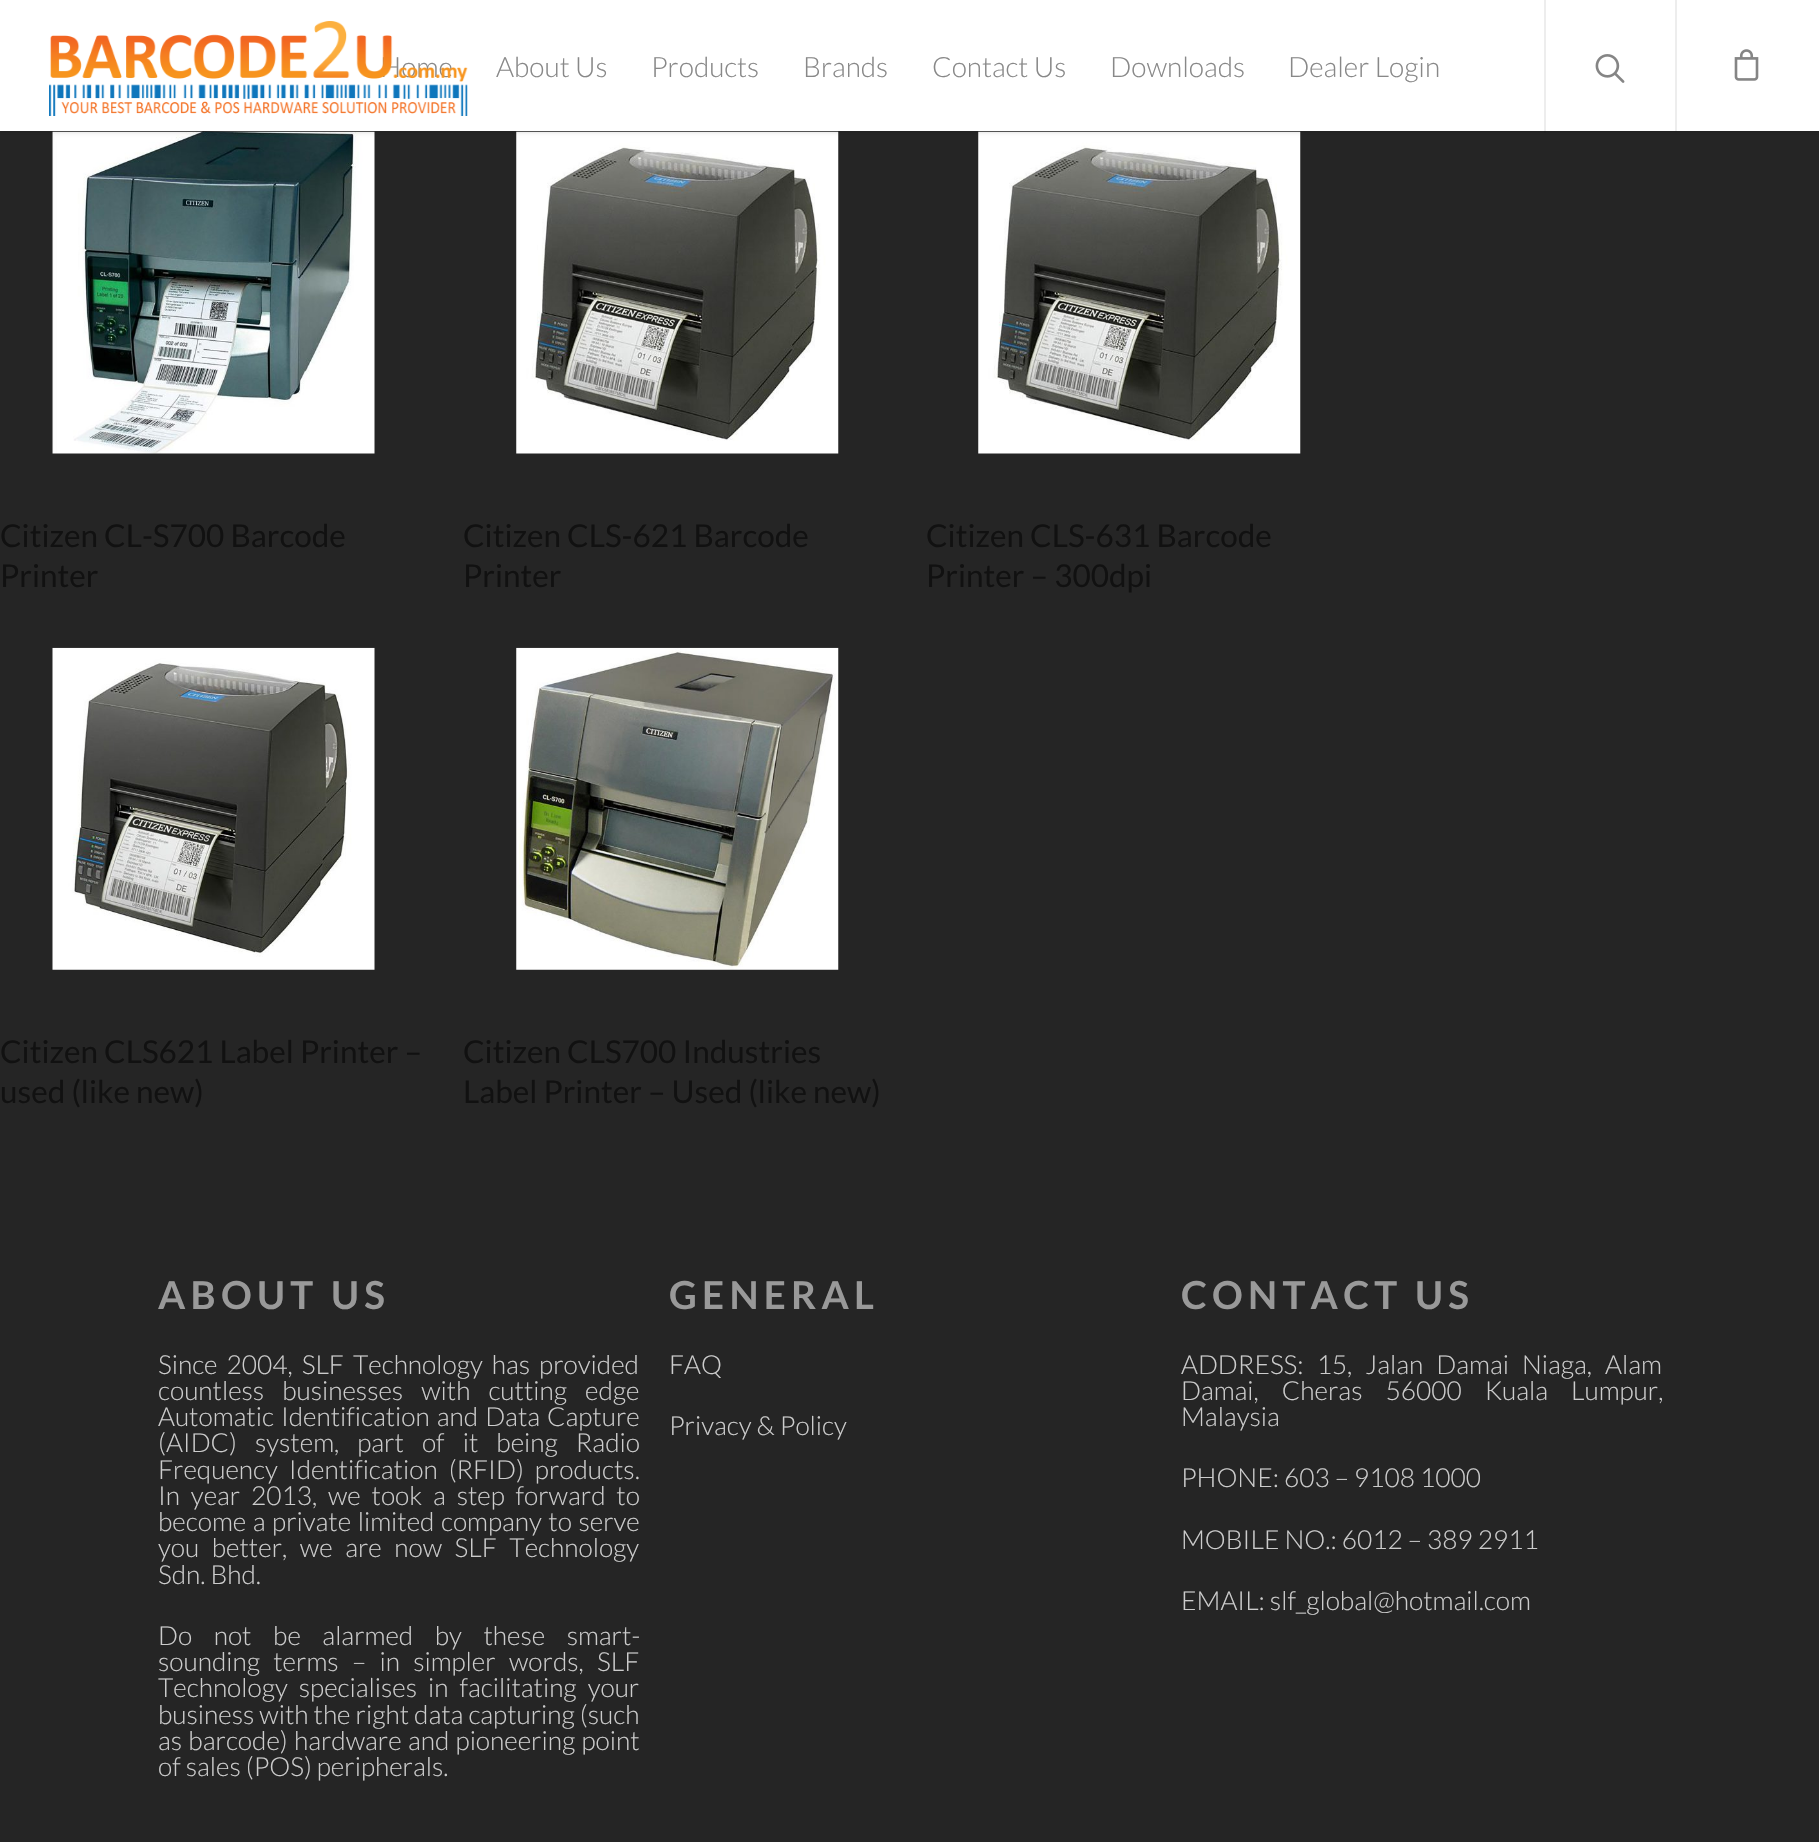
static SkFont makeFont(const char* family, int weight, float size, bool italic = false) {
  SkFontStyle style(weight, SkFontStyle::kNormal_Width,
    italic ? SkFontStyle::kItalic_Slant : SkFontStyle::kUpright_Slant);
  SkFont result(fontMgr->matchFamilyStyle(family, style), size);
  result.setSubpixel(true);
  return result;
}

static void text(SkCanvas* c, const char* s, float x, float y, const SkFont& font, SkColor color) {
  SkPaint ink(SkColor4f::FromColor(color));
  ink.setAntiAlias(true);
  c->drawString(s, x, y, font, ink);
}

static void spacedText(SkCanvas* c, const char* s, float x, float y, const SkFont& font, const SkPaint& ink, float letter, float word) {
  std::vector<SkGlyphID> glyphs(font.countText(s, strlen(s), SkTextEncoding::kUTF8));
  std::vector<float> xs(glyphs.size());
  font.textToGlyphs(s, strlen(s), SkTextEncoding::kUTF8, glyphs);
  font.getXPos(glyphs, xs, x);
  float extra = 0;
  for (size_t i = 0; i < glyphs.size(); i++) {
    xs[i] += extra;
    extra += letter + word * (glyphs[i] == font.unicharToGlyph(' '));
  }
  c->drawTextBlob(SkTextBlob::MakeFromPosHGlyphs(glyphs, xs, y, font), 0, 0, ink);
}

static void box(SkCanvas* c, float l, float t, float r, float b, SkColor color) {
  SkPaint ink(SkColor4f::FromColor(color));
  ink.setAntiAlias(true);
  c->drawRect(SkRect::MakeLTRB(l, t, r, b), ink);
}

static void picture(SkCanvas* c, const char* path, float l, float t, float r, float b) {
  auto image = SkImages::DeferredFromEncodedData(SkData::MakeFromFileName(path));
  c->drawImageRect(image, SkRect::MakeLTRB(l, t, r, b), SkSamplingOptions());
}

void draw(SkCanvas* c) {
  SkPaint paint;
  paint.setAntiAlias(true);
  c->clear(0xff252525);
  picture(c, "img_04.png", 52, 131, 375, 454);
  picture(c, "img_05.png", 516, 131, 839, 454);
  picture(c, "img_06.png", 978, 131, 1301, 454);
  paint.setColor(0x38000000);
  paint.setMaskFilter(SkMaskFilter::MakeBlur(kNormal_SkBlurStyle, 2.5f));
  c->drawRect(SkRect::MakeLTRB(0, 0, 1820, 131), paint);
  paint.setMaskFilter(nullptr);
  box(c, 0, 0, 1819, 131, 0xffffffff);
  SkFont face1 = makeFont("Lato", 300, 28);
  text(c, "Home", 380, 77, face1, 0xff888888);
  picture(c, "img_01.png", 49, 21, 468, 116);
  text(c, "About Us", 496, 77, face1, 0xff888888);
  text(c, "Products", 651, 77, face1, 0xff888888);
  text(c, "Brands", 803, 77, face1, 0xff888888);
  text(c, "Contact Us", 932, 77, face1, 0xff888888);
  text(c, "Downloads", 1110, 77, face1, 0xff888888);
  text(c, "Dealer Login", 1288, 77, face1, 0xff888888);
  box(c, 1544, 0, 1546, 133, 0x12000000);
  picture(c, "img_02.png", 1595, 54, 1625, 83);
  box(c, 1675, 0, 1677, 131, 0xffededed);
  picture(c, "img_03.png", 1734, 49, 1759, 81);
  SkFont face2 = makeFont("Lato", 400, 31.5f);
  text(c, "Citizen CL-S700 Barcode", 0, 547, face2, 0xff111111);
  text(c, "Printer", 0, 587, face2, 0xff111111);
  text(c, "Citizen CLS-621 Barcode", 463, 547, face2, 0xff111111);
  text(c, "Printer", 463, 587, face2, 0xff111111);
  text(c, "Citizen CLS-631 Barcode", 926, 547, face2, 0xff111111);
  text(c, "Printer – 300dpi", 926, 587, face2, 0xff111111);
  picture(c, "img_07.png", 52, 647, 375, 970);
  text(c, "Citizen CLS621 Label Printer –", 0, 1063, face2, 0xff111111);
  text(c, "used (like new)", 0, 1103, face2, 0xff111111);
  picture(c, "img_08.png", 516, 647, 839, 970);
  text(c, "Citizen CLS700 Industries", 463, 1063, face2, 0xff111111);
  text(c, "Label Printer – Used (like new)", 463, 1103, face2, 0xff111111);
  SkFont face3 = makeFont("Lato", 700, 38.5f);
  paint.setColor(0xff999999);
  spacedText(c, "ABOUT US", 158, 1309, face3, paint, 5.25f, 0);
  SkFont face4 = makeFont("Lato", 300, 26.25f);
  paint.setColor(0xffcccccc);
  spacedText(c, "Since 2004, SLF Technology has provided", 158, 1374, face4, paint, 0, 4);
  spacedText(c, "countless businesses with cutting edge", 158, 1400, face4, paint, 0, 13);
  spacedText(c, "Automatic Identification and Data Capture", 158, 1426, face4, paint, 0, 2);
  spacedText(c, "(AIDC) system, part of it being Radio", 158, 1452, face4, paint, 0, 13);
  spacedText(c, "Frequency Identification (RFID) products.", 158, 1479, face4, paint, 0, 6);
  spacedText(c, "In year 2013, we took a step forward to", 158, 1505, face4, paint, 0, 5.75f);
  spacedText(c, "become a private limited company to serve", 158, 1531, face4, paint, 0, 1.5f);
  spacedText(c, "you better, we are now SLF Technology", 158, 1557, face4, paint, 0, 7.5f);
  text(c, "Sdn. Bhd.", 158, 1584, face4, 0xffcccccc);
  spacedText(c, "Do not be alarmed by these smart-", 158, 1645, face4, paint, 0, 16.5f);
  spacedText(c, "sounding terms – in simpler words, SLF", 158, 1671, face4, paint, 0, 8.25f);
  spacedText(c, "Technology specialises in facilitating your", 158, 1697, face4, paint, 0, 6);
  text(c, "business with the right data capturing (such", 158, 1724, face4, 0xffcccccc);
  spacedText(c, "as barcode) hardware and pioneering point", 158, 1750, face4, paint, 0, 1.25f);
  text(c, "of sales (POS) peripherals.", 158, 1776, face4, 0xffcccccc);
  paint.setColor(0xff999999);
  spacedText(c, "GENERAL", 669, 1309, face3, paint, 5.25f, 0);
  text(c, "FAQ", 669, 1374, face4, 0xffcccccc);
  text(c, "Privacy & Policy", 669, 1435, face4, 0xffcccccc);
  spacedText(c, "CONTACT US", 1181, 1309, face3, paint, 5.25f, 0);
  paint.setColor(0xffcccccc);
  spacedText(c, "ADDRESS: 15, Jalan Damai Niaga, Alam", 1181, 1374, face4, paint, 0, 8);
  spacedText(c, "Damai, Cheras 56000 Kuala Lumpur,", 1181, 1400, face4, paint, 0, 18);
  text(c, "Malaysia", 1181, 1426, face4, 0xffcccccc);
  text(c, "PHONE: 603 – 9108 1000", 1181, 1487, face4, 0xffcccccc);
  text(c, "MOBILE NO.: 6012 – 389 2911", 1181, 1549, face4, 0xffcccccc);
  text(c, "EMAIL: slf_global@hotmail.com", 1181, 1610, face4, 0xffcccccc);
}
